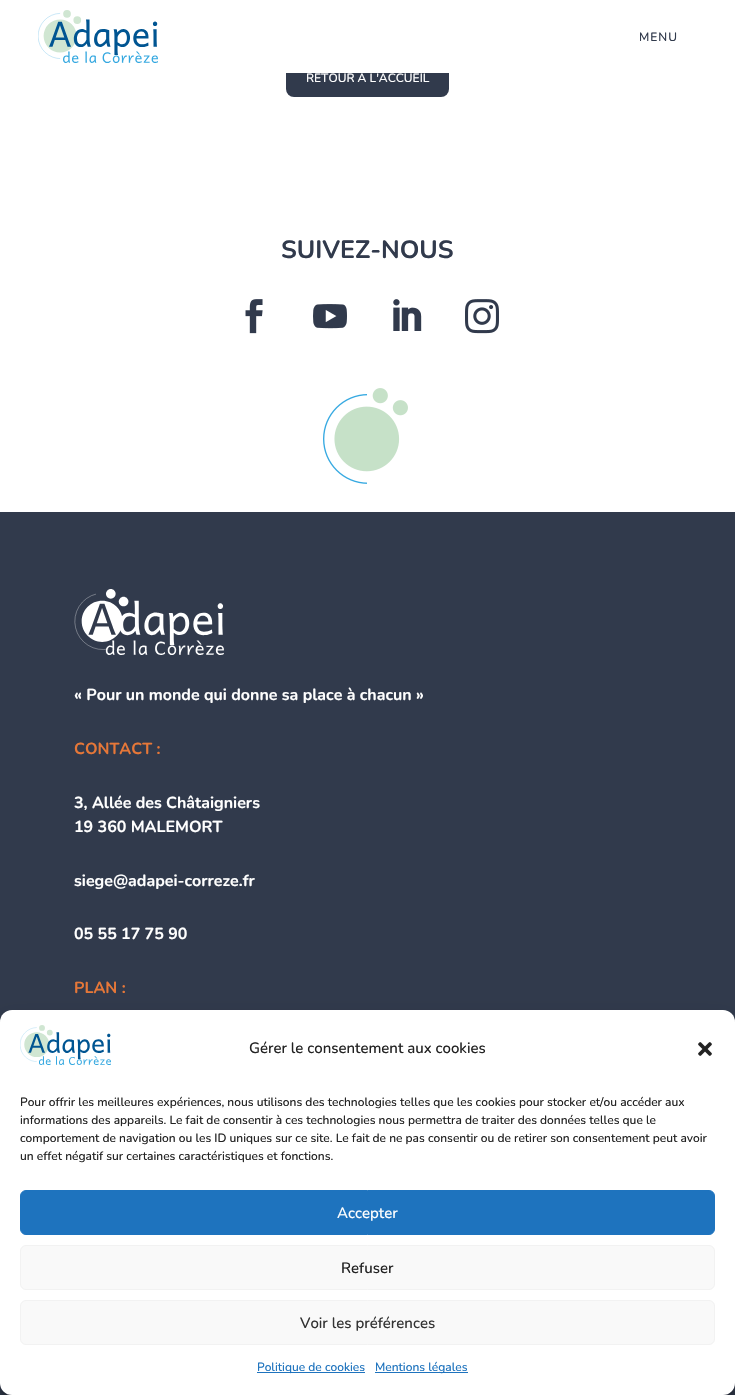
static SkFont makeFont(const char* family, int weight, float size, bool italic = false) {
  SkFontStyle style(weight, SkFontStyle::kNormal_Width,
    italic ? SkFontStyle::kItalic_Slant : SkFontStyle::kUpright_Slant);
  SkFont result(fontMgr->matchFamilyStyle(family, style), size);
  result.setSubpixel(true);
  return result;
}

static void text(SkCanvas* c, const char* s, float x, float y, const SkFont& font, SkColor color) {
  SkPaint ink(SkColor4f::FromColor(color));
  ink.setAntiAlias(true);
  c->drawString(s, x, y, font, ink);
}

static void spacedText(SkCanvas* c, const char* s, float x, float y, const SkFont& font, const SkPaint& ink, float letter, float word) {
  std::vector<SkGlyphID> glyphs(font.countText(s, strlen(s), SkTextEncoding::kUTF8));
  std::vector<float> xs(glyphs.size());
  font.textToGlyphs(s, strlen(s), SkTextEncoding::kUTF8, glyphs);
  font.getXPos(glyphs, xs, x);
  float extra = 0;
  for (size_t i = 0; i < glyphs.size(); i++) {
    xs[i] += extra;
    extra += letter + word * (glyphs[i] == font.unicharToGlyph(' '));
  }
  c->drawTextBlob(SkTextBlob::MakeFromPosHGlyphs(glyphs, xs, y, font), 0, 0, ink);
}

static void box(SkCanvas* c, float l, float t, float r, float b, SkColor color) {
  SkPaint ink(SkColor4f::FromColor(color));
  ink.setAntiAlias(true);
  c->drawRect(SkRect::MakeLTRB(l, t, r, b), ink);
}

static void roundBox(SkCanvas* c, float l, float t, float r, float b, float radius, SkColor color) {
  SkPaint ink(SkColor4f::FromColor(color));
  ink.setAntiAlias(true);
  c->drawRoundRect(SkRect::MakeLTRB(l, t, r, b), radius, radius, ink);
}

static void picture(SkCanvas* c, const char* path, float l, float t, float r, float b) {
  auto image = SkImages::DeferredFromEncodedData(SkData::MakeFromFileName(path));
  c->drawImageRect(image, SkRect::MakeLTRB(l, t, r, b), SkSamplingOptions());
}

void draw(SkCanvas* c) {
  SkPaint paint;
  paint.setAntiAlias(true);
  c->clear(0xffffffff);
  roundBox(c, 286, 60, 449, 97, 8, 0xff313a4c);
  box(c, 286, 60, 449, 73, 0xffffffff);
  picture(c, "img_01.png", 38, 10, 158, 63);
  SkFont face1 = makeFont("Nunito", 500, 12);
  paint.setColor(0xff313a4c);
  spacedText(c, "MENU", 639, 41, face1, paint, 1, 0);
  text(c, "RETOUR À L'ACCUEIL", 306, 82, face1, 0xffffffff);
  SkFont face2 = makeFont("Nunito", 700, 25);
  text(c, "SUIVEZ-NOUS", 281, 258, face2, 0xff313a4c);
  picture(c, "img_02.png", 245, 299, 263, 334);
  picture(c, "img_03.png", 313, 304, 347, 329);
  picture(c, "img_04.png", 393, 299, 422, 331);
  picture(c, "img_05.png", 465, 299, 499, 334);
  picture(c, "img_06.png", 323, 388, 408, 484);
  box(c, 0, 512, 735, 1395, 0xff313a4c);
  picture(c, "img_07.png", 74, 589, 224, 655);
  SkFont face3 = makeFont("Nunito", 700, 16);
  text(c, "« Pour un monde qui donne sa place à chacun »", 74, 700, face3, 0xffffffff);
  text(c, "CONTACT :", 74, 754, face3, 0xffe67738);
  text(c, "3, Allée des Châtaigniers", 74, 808, face3, 0xffffffff);
  text(c, "19 360 MALEMORT", 74, 832, face3, 0xffffffff);
  text(c, "siege@adapei-correze.fr", 74, 886, face3, 0xffffffff);
  text(c, "05 55 17 75 90", 74, 939, face3, 0xffffffff);
  text(c, "PLAN :", 74, 993, face3, 0xffe67738);
  paint.setColor(0x3b000000);
  paint.setMaskFilter(SkMaskFilter::MakeBlur(kNormal_SkBlurStyle, 3));
  c->drawRoundRect(SkRect::MakeLTRB(0, 1016, 735, 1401), 12, 12, paint);
  paint.setMaskFilter(nullptr);
  paint.setColor(0x30000000);
  paint.setMaskFilter(SkMaskFilter::MakeBlur(kNormal_SkBlurStyle, 10));
  c->drawRoundRect(SkRect::MakeLTRB(0, 1020, 735, 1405), 12, 12, paint);
  paint.setMaskFilter(nullptr);
  roundBox(c, 0, 1010, 735, 1395, 12, 0xffffffff);
  picture(c, "img_08.png", 20, 1025, 111, 1065);
  SkFont face4 = makeFont("Nunito", 500, 15);
  text(c, "Gérer le consentement aux cookies", 249, 1053, face4, 0xff222222);
  picture(c, "img_09.png", 698, 1042, 712, 1056);
  text(c, "Pour offrir les meilleures expériences, nous utilisons des technologies telles que les cookies pour stocker et/ou accéder aux", 20, 1106, face1, 0xff222222);
  text(c, "informations des appareils. Le fait de consentir à ces technologies nous permettra de traiter des données telles que le", 20, 1124, face1, 0xff222222);
  text(c, "comportement de navigation ou les ID uniques sur ce site. Le fait de ne pas consentir ou de retirer son consentement peut avoir", 20, 1142, face1, 0xff222222);
  text(c, "un effet négatif sur certaines caractéristiques et fonctions.", 20, 1160, face1, 0xff222222);
  paint.setColor(0xff1e73be);
  c->drawRoundRect(SkRect::MakeLTRB(20.5f, 1190.5f, 714.5f, 1234.5f), 5.5f, 5.5f, paint);
  paint.setStyle(SkPaint::kStroke_Style);
  paint.setStrokeWidth(1);
  c->drawRoundRect(SkRect::MakeLTRB(20.5f, 1190.5f, 714.5f, 1234.5f), 5.5f, 5.5f, paint);
  text(c, "Accepter", 337, 1218, face4, 0xffffffff);
  paint.setStyle(SkPaint::kFill_Style);
  paint.setColor(0xfff9f9f9);
  c->drawRoundRect(SkRect::MakeLTRB(20.5f, 1245.5f, 714.5f, 1289.5f), 5.5f, 5.5f, paint);
  paint.setStyle(SkPaint::kStroke_Style);
  paint.setColor(0xfff2f2f2);
  c->drawRoundRect(SkRect::MakeLTRB(20.5f, 1245.5f, 714.5f, 1289.5f), 5.5f, 5.5f, paint);
  text(c, "Refuser", 341, 1273, face4, 0xff222222);
  paint.setStyle(SkPaint::kFill_Style);
  paint.setColor(0xfff9f9f9);
  c->drawRoundRect(SkRect::MakeLTRB(20.5f, 1300.5f, 714.5f, 1344.5f), 5.5f, 5.5f, paint);
  paint.setStyle(SkPaint::kStroke_Style);
  paint.setColor(0xfff2f2f2);
  c->drawRoundRect(SkRect::MakeLTRB(20.5f, 1300.5f, 714.5f, 1344.5f), 5.5f, 5.5f, paint);
  text(c, "Voir les préférences", 300, 1328, face4, 0xff333333);
  box(c, 257, 1372, 365, 1373, 0xff1e73be);
  text(c, "Politique de cookies", 257, 1371, face1, 0xff1e73be);
  box(c, 375, 1372, 468, 1373, 0xff1e73be);
  text(c, "Mentions légales", 375, 1371, face1, 0xff1e73be);
}
